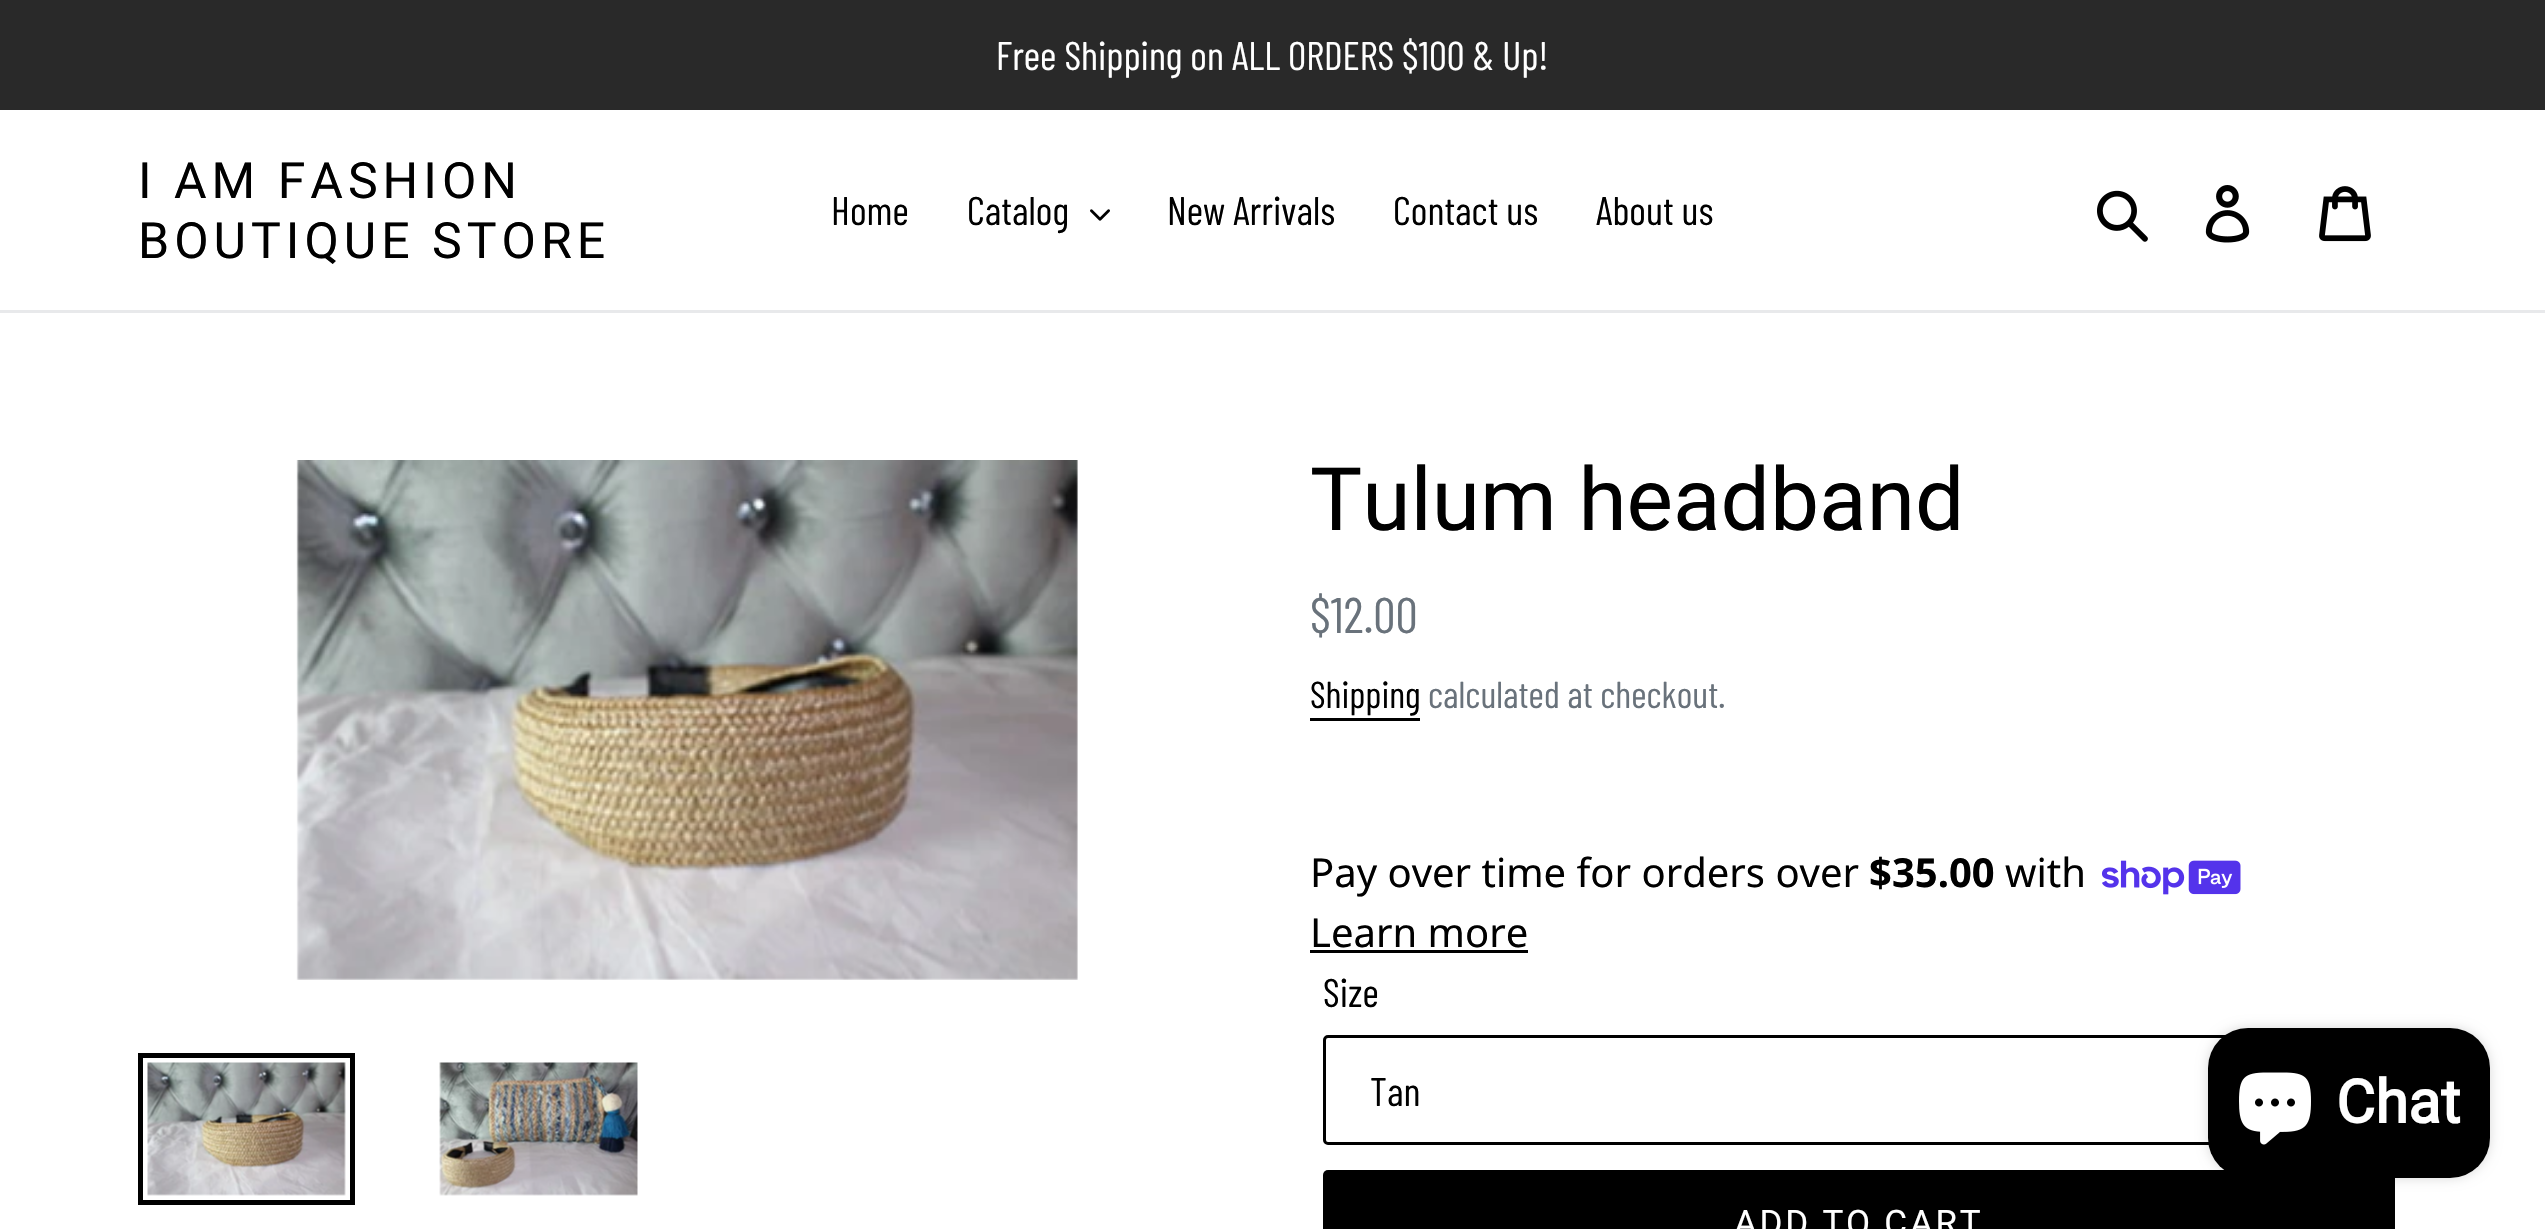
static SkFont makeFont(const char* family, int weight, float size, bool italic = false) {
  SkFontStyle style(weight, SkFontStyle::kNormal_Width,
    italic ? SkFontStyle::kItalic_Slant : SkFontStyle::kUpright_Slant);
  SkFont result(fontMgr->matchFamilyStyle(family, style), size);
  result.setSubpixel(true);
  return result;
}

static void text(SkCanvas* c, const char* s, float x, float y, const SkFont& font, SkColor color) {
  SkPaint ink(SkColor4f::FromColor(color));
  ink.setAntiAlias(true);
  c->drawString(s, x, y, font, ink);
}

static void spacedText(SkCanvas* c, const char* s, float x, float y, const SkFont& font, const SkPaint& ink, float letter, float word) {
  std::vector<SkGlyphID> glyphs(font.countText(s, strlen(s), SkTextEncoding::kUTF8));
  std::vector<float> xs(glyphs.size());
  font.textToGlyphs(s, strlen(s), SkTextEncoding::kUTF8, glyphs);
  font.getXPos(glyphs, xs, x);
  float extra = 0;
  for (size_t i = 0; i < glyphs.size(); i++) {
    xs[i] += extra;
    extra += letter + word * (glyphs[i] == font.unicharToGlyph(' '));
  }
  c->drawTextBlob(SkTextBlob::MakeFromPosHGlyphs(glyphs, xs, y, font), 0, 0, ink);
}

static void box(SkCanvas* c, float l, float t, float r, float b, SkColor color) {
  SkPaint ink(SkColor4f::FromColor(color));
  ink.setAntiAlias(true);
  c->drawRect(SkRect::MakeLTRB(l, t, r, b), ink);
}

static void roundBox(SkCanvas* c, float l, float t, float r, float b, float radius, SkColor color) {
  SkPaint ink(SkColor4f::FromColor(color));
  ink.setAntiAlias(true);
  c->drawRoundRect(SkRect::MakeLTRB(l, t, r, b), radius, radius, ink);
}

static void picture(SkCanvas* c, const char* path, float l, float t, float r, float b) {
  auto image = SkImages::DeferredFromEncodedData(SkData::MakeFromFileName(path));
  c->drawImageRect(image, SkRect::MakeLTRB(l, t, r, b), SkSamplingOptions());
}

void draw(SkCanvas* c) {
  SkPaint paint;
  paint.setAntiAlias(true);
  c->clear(0xffffffff);
  box(c, 0, 0, 2545, 110, 0xff292929);
  SkFont face1 = makeFont("Barlow Condensed", 400, 40);
  text(c, "Free Shipping on ALL ORDERS $100 & Up!", 996, 70, face1, 0xffffffff);
  box(c, 0, 310, 2545, 313, 0xffe8e9eb);
  SkFont face2 = makeFont("Roboto", 400, 50);
  paint.setColor(0xff000000);
  spacedText(c, "I AM FASHION", 138, 198, face2, paint, 5, 0);
  spacedText(c, "BOUTIQUE STORE", 138, 258, face2, paint, 5, 0);
  text(c, "Home", 831, 225, face1, 0xff000000);
  text(c, "Catalog", 967, 225, face1, 0xff000000);
  picture(c, "img_01.png", 1090, 209, 1110, 221);
  text(c, "New Arrivals", 1167, 225, face1, 0xff000000);
  text(c, "Contact us", 1393, 225, face1, 0xff000000);
  text(c, "About us", 1596, 225, face1, 0xff000000);
  picture(c, "img_02.png", 2097, 190, 2148, 242);
  picture(c, "img_03.png", 2205, 185, 2250, 243);
  picture(c, "img_04.png", 2319, 186, 2371, 242);
  picture(c, "img_05.png", 296, 460, 1078, 980);
  paint.setStyle(SkPaint::kStroke_Style);
  paint.setStrokeWidth(5);
  c->drawRect(SkRect::MakeLTRB(140.5f, 1055.5f, 352.5f, 1202.5f), paint);
  picture(c, "img_06.png", 147, 1062, 346, 1196);
  picture(c, "img_07.png", 439, 1062, 638, 1196);
  SkFont face3 = makeFont("Roboto", 400, 87.5f);
  text(c, "Tulum headband", 1310, 530, face3, 0xff000000);
  SkFont face4 = makeFont("Barlow Condensed", 400, 50);
  text(c, "$12.00", 1310, 633, face4, 0xff69727b);
  SkFont face5 = makeFont("Barlow Condensed", 400, 37.5f);
  text(c, "Shipping", 1310, 708, face5, 0xff000000);
  box(c, 1310, 718, 1420, 721, 0xff000000);
  text(c, "calculated at checkout.", 1428, 708, face5, 0xff69727b);
  SkFont face6 = makeFont("Noto Sans", 400, 40);
  text(c, "Pay over time for orders over", 1310, 887, face6, 0xff000000);
  SkFont face7 = makeFont("Noto Sans", 700, 40);
  text(c, "$35.00", 1869, 887, face7, 0xff000000);
  text(c, "with", 2005, 887, face6, 0xff000000);
  picture(c, "img_08.png", 2101, 860, 2241, 895);
  text(c, "Learn more", 1310, 947, face6, 0xff000000);
  box(c, 1310, 950, 1528, 953, 0xff000000);
  text(c, "Size", 1323, 1007, face1, 0xff000000);
  paint.setStrokeWidth(3);
  c->drawRoundRect(SkRect::MakeLTRB(1324.5f, 1036.5f, 2393.5f, 1143.5f), 3.5f, 3.5f, paint);
  text(c, "Tan", 1370, 1106, face1, 0xff000000);
  roundBox(c, 1323, 1170, 2395, 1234, 5, 0xff000000);
  SkFont face8 = makeFont("Roboto", 400, 35);
  paint.setStyle(SkPaint::kFill_Style);
  paint.setColor(0xffffffff);
  spacedText(c, "ADD TO CART", 1734, 1235, face8, paint, 2.75f, 0);
  paint.setColor(0x26000000);
  paint.setMaskFilter(SkMaskFilter::MakeBlur(kNormal_SkBlurStyle, 6));
  c->drawRoundRect(SkRect::MakeLTRB(2208, 1028, 2490, 1178), 40, 40, paint);
  paint.setMaskFilter(nullptr);
  roundBox(c, 2208, 1028, 2490, 1178, 40, 0xff000000);
  picture(c, "img_09.png", 2239, 1072, 2311, 1145);
  SkFont face9 = makeFont("Roboto", 700, 60);
  text(c, "Chat", 2336, 1123, face9, 0xffffffff);
}
